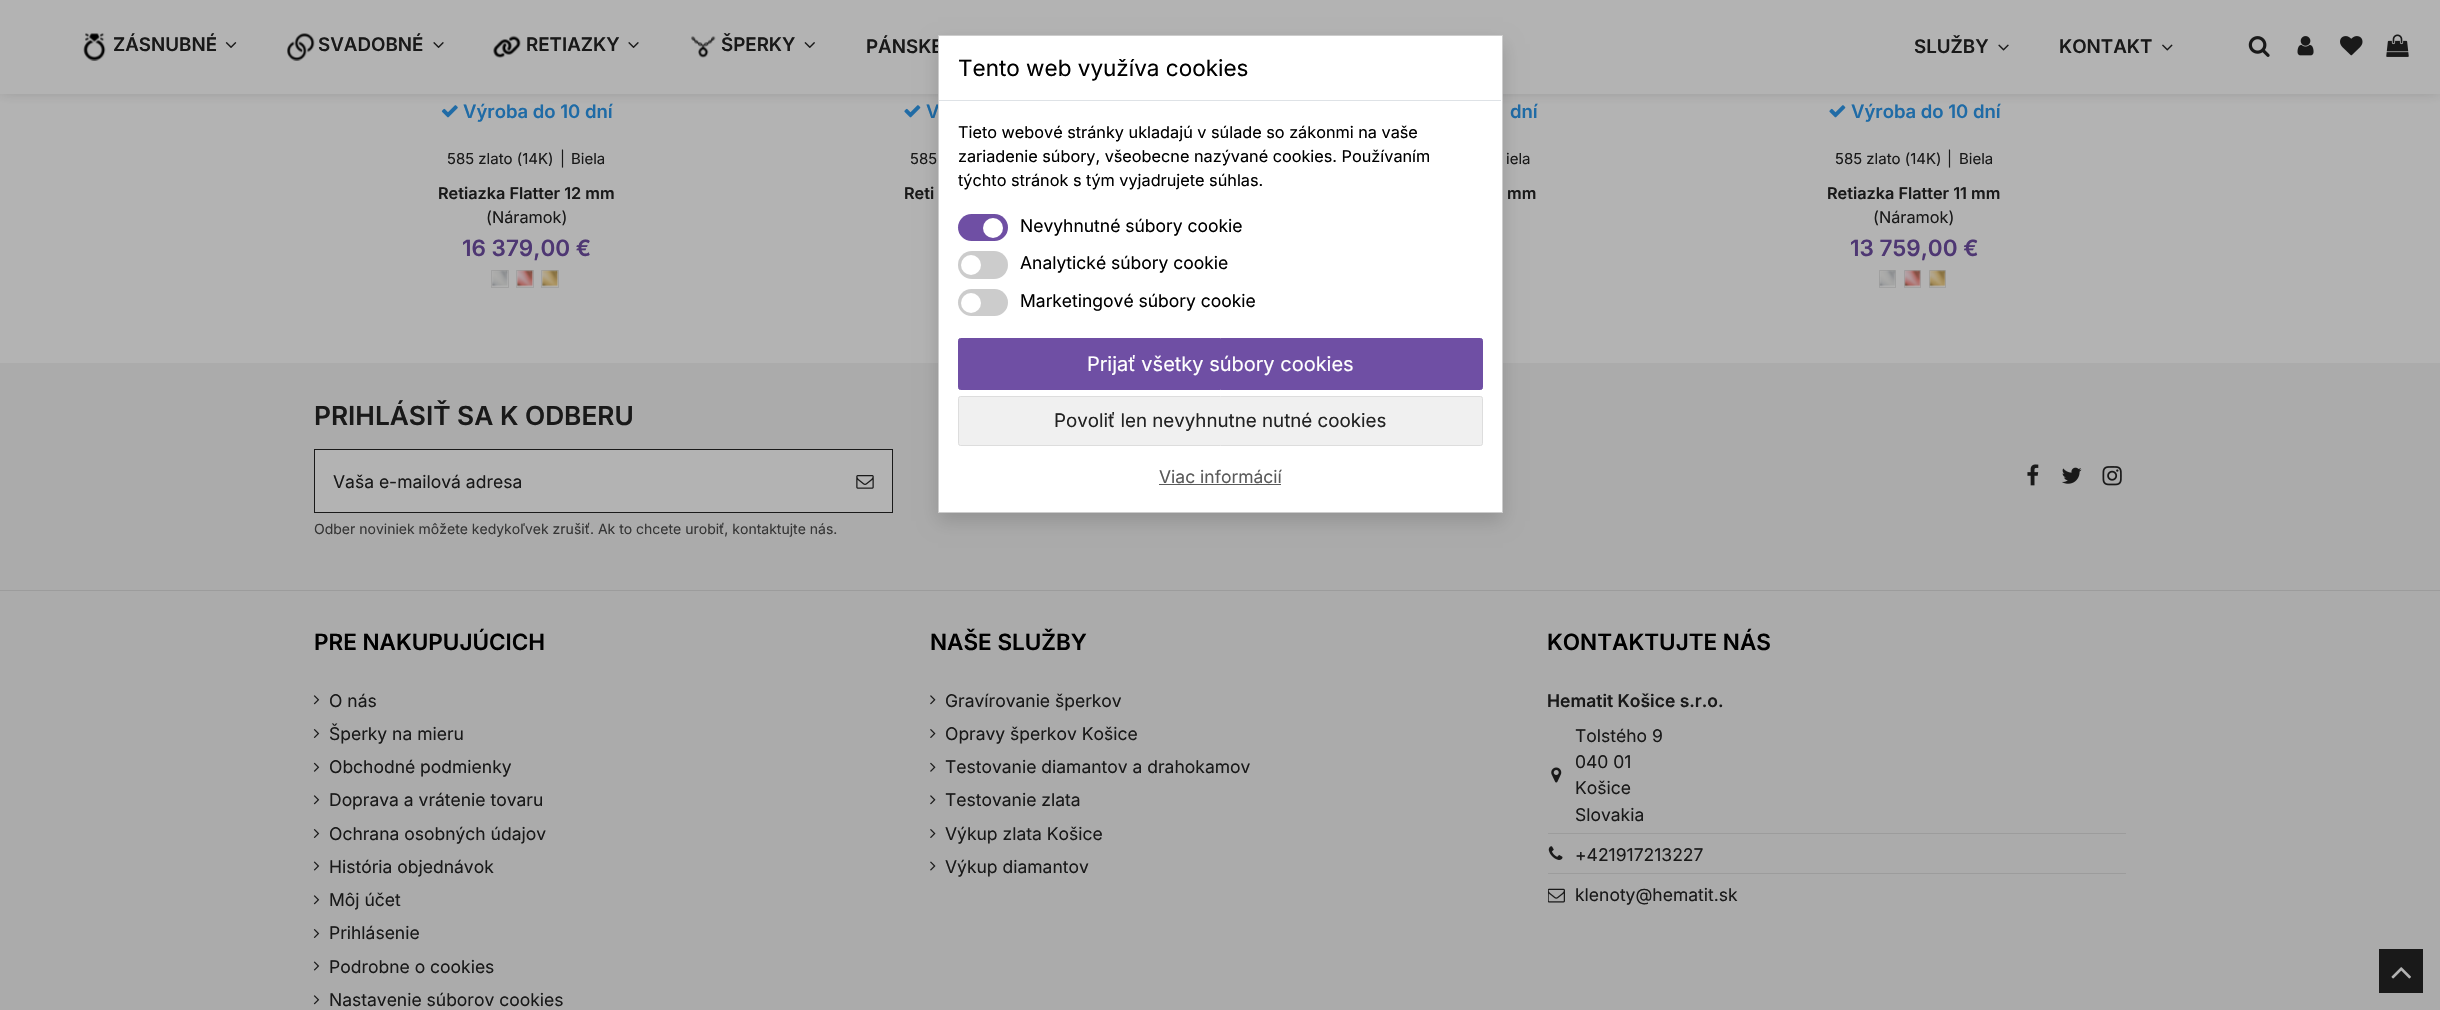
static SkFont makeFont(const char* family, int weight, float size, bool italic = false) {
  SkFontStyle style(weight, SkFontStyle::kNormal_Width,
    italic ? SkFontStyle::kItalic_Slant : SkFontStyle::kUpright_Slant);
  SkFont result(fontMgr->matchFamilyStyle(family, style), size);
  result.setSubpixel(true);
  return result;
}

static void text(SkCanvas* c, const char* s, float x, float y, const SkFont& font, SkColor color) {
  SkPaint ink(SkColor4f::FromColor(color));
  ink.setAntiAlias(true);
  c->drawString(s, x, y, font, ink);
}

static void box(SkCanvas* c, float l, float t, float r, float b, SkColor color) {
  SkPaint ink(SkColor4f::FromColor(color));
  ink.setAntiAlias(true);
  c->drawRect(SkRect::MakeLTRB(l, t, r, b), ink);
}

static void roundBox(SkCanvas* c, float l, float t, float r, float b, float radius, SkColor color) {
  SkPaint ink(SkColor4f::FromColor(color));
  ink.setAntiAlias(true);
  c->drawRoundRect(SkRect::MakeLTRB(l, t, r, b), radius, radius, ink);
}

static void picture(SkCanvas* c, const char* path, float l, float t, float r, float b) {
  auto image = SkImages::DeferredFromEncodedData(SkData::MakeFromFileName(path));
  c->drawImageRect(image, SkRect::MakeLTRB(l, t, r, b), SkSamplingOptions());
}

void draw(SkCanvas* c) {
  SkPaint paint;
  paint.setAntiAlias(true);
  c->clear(0xffb3b3b3);
  picture(c, "img_14.png", 441, 105, 458, 118);
  picture(c, "img_18.png", 904, 105, 921, 118);
  picture(c, "img_18.png", 1829, 105, 1846, 118);
  paint.setColor(0x402b2828);
  paint.setMaskFilter(SkMaskFilter::MakeBlur(kNormal_SkBlurStyle, 7));
  c->drawRect(SkRect::MakeLTRB(0, -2, 2440, 91), paint);
  paint.setMaskFilter(nullptr);
  box(c, 0, 0, 2440, 94, 0xffb3b3b3);
  picture(c, "img_01.png", 83, 33, 106, 61);
  SkFont face1 = makeFont("Inter", 600, 18.75f);
  text(c, "ZÁSNUBNÉ", 113, 51, face1, 0xff191919);
  picture(c, "img_02.png", 225, 42, 237, 48);
  picture(c, "img_03.png", 287, 33, 315, 61);
  text(c, "SVADOBNÉ", 318, 51, face1, 0xff191919);
  picture(c, "img_04.png", 433, 42, 444, 48);
  picture(c, "img_05.png", 493, 35, 521, 58);
  text(c, "RETIAZKY", 526, 51, face1, 0xff191919);
  picture(c, "img_04.png", 628, 42, 639, 48);
  picture(c, "img_06.png", 691, 36, 716, 58);
  text(c, "ŠPERKY", 721, 51, face1, 0xff191919);
  picture(c, "img_07.png", 804, 42, 815, 48);
  text(c, "PÁNSKE", 866, 53, face1, 0xff191919);
  text(c, "SLUŽBY", 1914, 53, face1, 0xff191919);
  picture(c, "img_08.png", 1998, 44, 2009, 51);
  text(c, "KONTAKT", 2059, 53, face1, 0xff191919);
  picture(c, "img_09.png", 2162, 44, 2173, 51);
  picture(c, "img_10.png", 2248, 36, 2270, 57);
  picture(c, "img_11.png", 2297, 36, 2314, 56);
  picture(c, "img_12.png", 2340, 36, 2363, 56);
  picture(c, "img_13.png", 2386, 34, 2409, 57);
  SkFont face2 = makeFont("Inter", 600, 18.5f);
  text(c, "Výroba do 10 dní", 463, 118, face2, 0xff1f6ba6);
  SkFont face3 = makeFont("Inter", 400, 15);
  text(c, "585 zlato (14K)", 447, 164, face3, 0xff191919);
  text(c, "|", 560, 164, face3, 0xff191919);
  text(c, "Biela", 571, 164, face3, 0xff191919);
  SkFont face4 = makeFont("Inter", 600, 16.25f);
  text(c, "Retiazka Flatter 12 mm", 438, 199, face4, 0xff191919);
  SkFont face5 = makeFont("Inter", 400, 16.25f);
  text(c, "(Náramok)", 486, 223, face5, 0xff191919);
  SkFont face6 = makeFont("Inter", 600, 22.5f);
  text(c, "16 379,00 €", 462, 256, face6, 0xff4e3773);
  picture(c, "img_15.png", 492, 270, 509, 287);
  paint.setStyle(SkPaint::kStroke_Style);
  paint.setStrokeWidth(1);
  paint.setColor(0x40717171);
  c->drawRect(SkRect::MakeLTRB(491.5f, 270.5f, 508.5f, 287.5f), paint);
  picture(c, "img_16.png", 517, 270, 534, 287);
  c->drawRect(SkRect::MakeLTRB(516.5f, 270.5f, 533.5f, 287.5f), paint);
  picture(c, "img_17.png", 542, 270, 559, 287);
  c->drawRect(SkRect::MakeLTRB(541.5f, 270.5f, 558.5f, 287.5f), paint);
  text(c, "V", 926, 118, face2, 0xff1f6ba6);
  text(c, "585", 910, 164, face3, 0xff191919);
  text(c, "Reti", 904, 199, face4, 0xff191919);
  text(c, "dní", 1510, 118, face2, 0xff1f6ba6);
  text(c, "iela", 1506, 164, face3, 0xff191919);
  text(c, "mm", 1507, 199, face4, 0xff191919);
  text(c, "Výroba do 10 dní", 1851, 118, face2, 0xff1f6ba6);
  text(c, "585 zlato (14K)", 1835, 164, face3, 0xff191919);
  text(c, "|", 1947, 164, face3, 0xff191919);
  text(c, "Biela", 1959, 164, face3, 0xff191919);
  text(c, "Retiazka Flatter 11 mm", 1827, 199, face4, 0xff191919);
  text(c, "(Náramok)", 1873, 223, face5, 0xff191919);
  text(c, "13 759,00 €", 1850, 256, face6, 0xff4e3773);
  picture(c, "img_19.png", 1879, 270, 1896, 287);
  c->drawRect(SkRect::MakeLTRB(1879.5f, 270.5f, 1895.5f, 287.5f), paint);
  picture(c, "img_20.png", 1904, 270, 1921, 287);
  c->drawRect(SkRect::MakeLTRB(1904.5f, 270.5f, 1920.5f, 287.5f), paint);
  picture(c, "img_21.png", 1929, 270, 1946, 287);
  c->drawRect(SkRect::MakeLTRB(1929.5f, 270.5f, 1945.5f, 287.5f), paint);
  box(c, 0, 363, 2440, 1010, 0xffababab);
  SkFont face7 = makeFont("Inter", 600, 26.25f);
  text(c, "PRIHLÁSIŤ SA K ODBERU", 314, 425, face7, 0xff191919);
  paint.setStyle(SkPaint::kFill_Style);
  paint.setColor(0xffb3b3b3);
  c->drawRect(SkRect::MakeLTRB(314.5f, 449.5f, 892.5f, 512.5f), paint);
  paint.setStyle(SkPaint::kStroke_Style);
  paint.setColor(0xff191919);
  c->drawRect(SkRect::MakeLTRB(314.5f, 449.5f, 892.5f, 512.5f), paint);
  SkFont face8 = makeFont("Inter", 400, 17.5f);
  text(c, "Vaša e-mailová adresa", 333, 488, face8, 0xff191919);
  picture(c, "img_22.png", 856, 475, 874, 489);
  SkFont face9 = makeFont("Inter", 400, 14);
  text(c, "Odber noviniek môžete kedykoľvek zrušiť. Ak to chcete urobiť, kontaktujte nás.", 314, 534, face9, 0xff363636);
  picture(c, "img_23.png", 2027, 464, 2039, 486);
  picture(c, "img_24.png", 2062, 467, 2082, 484);
  picture(c, "img_25.png", 2102, 466, 2122, 486);
  box(c, 0, 590, 2440, 591, 0xff9c9c9c);
  text(c, "PRE NAKUPUJÚCICH", 314, 650, face6, 0xff000000);
  picture(c, "img_26.png", 313, 695, 320, 705);
  text(c, "O nás", 329, 707, face8, 0xff191919);
  picture(c, "img_27.png", 313, 729, 320, 738);
  text(c, "Šperky na mieru", 329, 740, face8, 0xff191919);
  picture(c, "img_28.png", 313, 762, 320, 772);
  text(c, "Obchodné podmienky", 329, 773, face8, 0xff191919);
  picture(c, "img_26.png", 313, 795, 320, 805);
  text(c, "Doprava a vrátenie tovaru", 329, 806, face8, 0xff191919);
  picture(c, "img_27.png", 313, 829, 320, 838);
  text(c, "Ochrana osobných údajov", 329, 840, face8, 0xff191919);
  picture(c, "img_29.png", 313, 861, 320, 871);
  text(c, "História objednávok", 329, 873, face8, 0xff191919);
  picture(c, "img_26.png", 313, 895, 320, 905);
  text(c, "Môj účet", 329, 906, face8, 0xff191919);
  picture(c, "img_27.png", 313, 929, 320, 938);
  text(c, "Prihlásenie", 329, 939, face8, 0xff191919);
  picture(c, "img_29.png", 313, 961, 320, 971);
  text(c, "Podrobne o cookies", 329, 973, face8, 0xff191919);
  picture(c, "img_26.png", 313, 995, 320, 1005);
  text(c, "Nastavenie súborov cookies", 329, 1006, face8, 0xff191919);
  text(c, "NAŠE SLUŽBY", 930, 650, face6, 0xff000000);
  picture(c, "img_30.png", 930, 695, 936, 705);
  text(c, "Gravírovanie šperkov", 945, 707, face8, 0xff191919);
  picture(c, "img_31.png", 930, 729, 936, 738);
  text(c, "Opravy šperkov Košice", 945, 740, face8, 0xff191919);
  picture(c, "img_32.png", 930, 762, 936, 772);
  text(c, "Testovanie diamantov a drahokamov", 945, 773, face8, 0xff191919);
  picture(c, "img_30.png", 930, 795, 936, 805);
  text(c, "Testovanie zlata", 945, 806, face8, 0xff191919);
  picture(c, "img_31.png", 930, 829, 936, 838);
  text(c, "Výkup zlata Košice", 945, 840, face8, 0xff191919);
  picture(c, "img_33.png", 930, 861, 936, 871);
  text(c, "Výkup diamantov", 945, 873, face8, 0xff191919);
  text(c, "KONTAKTUJTE NÁS", 1547, 650, face6, 0xff000000);
  SkFont face10 = makeFont("Inter", 600, 17.5f);
  text(c, "Hematit Košice s.r.o.", 1547, 707, face10, 0xff191919);
  picture(c, "img_34.png", 1551, 767, 1562, 783);
  text(c, "Tolstého 9", 1575, 742, face8, 0xff191919);
  text(c, "040 01", 1575, 768, face8, 0xff191919);
  text(c, "Košice", 1575, 794, face8, 0xff191919);
  text(c, "Slovakia", 1575, 821, face8, 0xff191919);
  box(c, 1548, 833, 2126, 834, 0xff9c9c9c);
  picture(c, "img_35.png", 1548, 846, 1563, 860);
  text(c, "+421917213227", 1575, 861, face8, 0xff191919);
  box(c, 1548, 873, 2126, 874, 0xff9c9c9c);
  picture(c, "img_36.png", 1548, 888, 1565, 903);
  text(c, "klenoty@hematit.sk", 1575, 901, face8, 0xff191919);
  paint.setStyle(SkPaint::kFill_Style);
  paint.setColor(0x26000000);
  paint.setMaskFilter(SkMaskFilter::MakeBlur(kNormal_SkBlurStyle, 9));
  c->drawRect(SkRect::MakeLTRB(938, 44, 1503, 521), paint);
  paint.setMaskFilter(nullptr);
  paint.setColor(0xffffffff);
  c->drawRect(SkRect::MakeLTRB(938.5f, 35.5f, 1502.5f, 512.5f), paint);
  paint.setStyle(SkPaint::kStroke_Style);
  paint.setColor(0xffcccccc);
  c->drawRect(SkRect::MakeLTRB(938.5f, 35.5f, 1502.5f, 512.5f), paint);
  box(c, 939, 100, 1501, 101, 0xffdee2e6);
  SkFont face11 = makeFont("Inter", 400, 22.5f);
  text(c, "Tento web využíva cookies", 958, 76, face11, 0xff000000);
  text(c, "Tieto webové stránky ukladajú v súlade so zákonmi na vaše", 958, 138, face5, 0xff000000);
  text(c, "zariadenie súbory, všeobecne nazývané cookies. Používaním", 958, 162, face5, 0xff000000);
  text(c, "týchto stránok s tým vyjadrujete súhlas.", 958, 186, face5, 0xff000000);
  roundBox(c, 958, 214, 1008, 241, 13.5f, 0xff6f4fa4);
  paint.setStyle(SkPaint::kFill_Style);
  paint.setColor(0xffffffff);
  c->drawCircle(993, 228, 10, paint);
  text(c, "Nevyhnutné súbory cookie", 1020, 232, face8, 0xff000000);
  roundBox(c, 958, 251, 1008, 279, 14, 0xffcccccc);
  c->drawCircle(971, 265, 10, paint);
  text(c, "Analytické súbory cookie", 1020, 269, face8, 0xff000000);
  roundBox(c, 958, 289, 1008, 316, 13.5f, 0xffcccccc);
  c->drawCircle(971, 303, 10, paint);
  text(c, "Marketingové súbory cookie", 1020, 307, face8, 0xff000000);
  paint.setColor(0xff6f4fa4);
  c->drawRoundRect(SkRect::MakeLTRB(958.5f, 338.5f, 1482.5f, 389.5f), 2, 2, paint);
  paint.setStyle(SkPaint::kStroke_Style);
  c->drawRoundRect(SkRect::MakeLTRB(958.5f, 338.5f, 1482.5f, 389.5f), 2, 2, paint);
  SkFont face12 = makeFont("Inter", 400, 20);
  text(c, "Prijať všetky súbory cookies", 1087, 371, face12, 0xffffffff);
  paint.setStyle(SkPaint::kFill_Style);
  paint.setColor(0xfff0f0f0);
  c->drawRoundRect(SkRect::MakeLTRB(958.5f, 396.5f, 1482.5f, 445.5f), 2, 2, paint);
  paint.setStyle(SkPaint::kStroke_Style);
  paint.setColor(0xffdddddd);
  c->drawRoundRect(SkRect::MakeLTRB(958.5f, 396.5f, 1482.5f, 445.5f), 2, 2, paint);
  SkFont face13 = makeFont("Inter", 400, 18.75f);
  text(c, "Povoliť len nevyhnutne nutné cookies", 1054, 427, face13, 0xff232323);
  text(c, "Viac informácií", 1159, 483, face8, 0xff5a5a5a);
  box(c, 1159, 484, 1281, 485, 0xff5a5a5a);
  box(c, 2379, 949, 2423, 993, 0xff191919);
  picture(c, "img_37.png", 2391, 967, 2411, 979);
}
